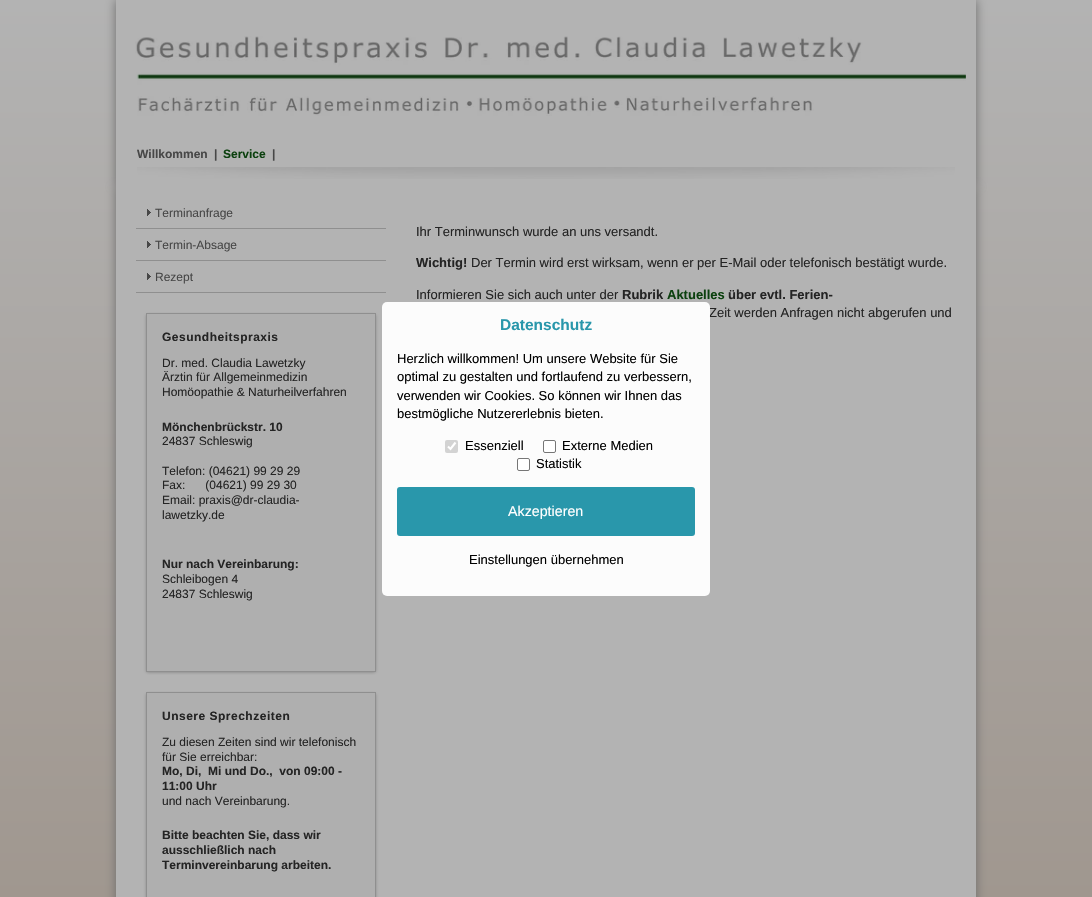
static SkFont makeFont(const char* family, int weight, float size, bool italic = false) {
  SkFontStyle style(weight, SkFontStyle::kNormal_Width,
    italic ? SkFontStyle::kItalic_Slant : SkFontStyle::kUpright_Slant);
  SkFont result(fontMgr->matchFamilyStyle(family, style), size);
  result.setSubpixel(true);
  return result;
}

static void text(SkCanvas* c, const char* s, float x, float y, const SkFont& font, SkColor color) {
  SkPaint ink(SkColor4f::FromColor(color));
  ink.setAntiAlias(true);
  c->drawString(s, x, y, font, ink);
}

static void spacedText(SkCanvas* c, const char* s, float x, float y, const SkFont& font, const SkPaint& ink, float letter, float word) {
  std::vector<SkGlyphID> glyphs(font.countText(s, strlen(s), SkTextEncoding::kUTF8));
  std::vector<float> xs(glyphs.size());
  font.textToGlyphs(s, strlen(s), SkTextEncoding::kUTF8, glyphs);
  font.getXPos(glyphs, xs, x);
  float extra = 0;
  for (size_t i = 0; i < glyphs.size(); i++) {
    xs[i] += extra;
    extra += letter + word * (glyphs[i] == font.unicharToGlyph(' '));
  }
  c->drawTextBlob(SkTextBlob::MakeFromPosHGlyphs(glyphs, xs, y, font), 0, 0, ink);
}

static void box(SkCanvas* c, float l, float t, float r, float b, SkColor color) {
  SkPaint ink(SkColor4f::FromColor(color));
  ink.setAntiAlias(true);
  c->drawRect(SkRect::MakeLTRB(l, t, r, b), ink);
}

static void roundBox(SkCanvas* c, float l, float t, float r, float b, float radius, SkColor color) {
  SkPaint ink(SkColor4f::FromColor(color));
  ink.setAntiAlias(true);
  c->drawRoundRect(SkRect::MakeLTRB(l, t, r, b), radius, radius, ink);
}

static void picture(SkCanvas* c, const char* path, float l, float t, float r, float b) {
  auto image = SkImages::DeferredFromEncodedData(SkData::MakeFromFileName(path));
  c->drawImageRect(image, SkRect::MakeLTRB(l, t, r, b), SkSamplingOptions());
}

void draw(SkCanvas* c) {
  SkPaint paint;
  paint.setAntiAlias(true);
  c->clear(0xffffffff);
  {
    const SkColor colors[] = {0xffb3b3b3, 0xff998d82};
    const float stops[] = {0, 1};
    const SkPoint ends[] = {{546, 0}, {546, 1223}};
    paint.setShader(SkGradientShader::MakeLinear(ends, colors, stops, 2, SkTileMode::kClamp));
    paint.setAlpha(255);
  }
  c->drawRect(SkRect::MakeLTRB(0, 0, 1092, 897), paint);
  paint.setShader(nullptr);
  paint.setColor(0xff6b6b6b);
  paint.setMaskFilter(SkMaskFilter::MakeBlur(kNormal_SkBlurStyle, 5));
  c->drawRect(SkRect::MakeLTRB(116, 0, 976, 187), paint);
  paint.setMaskFilter(nullptr);
  paint.setMaskFilter(SkMaskFilter::MakeBlur(kNormal_SkBlurStyle, 5));
  c->drawRect(SkRect::MakeLTRB(116, 187, 976, 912), paint);
  paint.setMaskFilter(nullptr);
  box(c, 116, 0, 976, 897, 0xffb3b3b3);
  picture(c, "img_01.png", 135, 36, 966, 116);
  SkFont face1 = makeFont("Liberation Sans", 700, 12);
  text(c, "Willkommen", 137, 158, face1, 0xff474747);
  text(c, "|", 214, 158, face1, 0xff474747);
  text(c, "Service", 223, 158, face1, 0xff0c410f);
  text(c, "|", 272, 158, face1, 0xff474747);
  picture(c, "img_02.png", 137, 167, 955, 179);
  box(c, 136, 228, 386, 229, 0xff8f8f8f);
  picture(c, "img_03.png", 147, 209, 151, 216);
  SkFont face2 = makeFont("Liberation Sans", 400, 12);
  text(c, "Terminanfrage", 155, 217, face2, 0xff474747);
  box(c, 136, 260, 386, 261, 0xff8f8f8f);
  picture(c, "img_03.png", 147, 241, 151, 248);
  text(c, "Termin-Absage", 155, 249, face2, 0xff474747);
  box(c, 136, 292, 386, 293, 0xff8f8f8f);
  picture(c, "img_03.png", 147, 273, 151, 280);
  text(c, "Rezept", 155, 281, face2, 0xff474747);
  paint.setStyle(SkPaint::kStroke_Style);
  paint.setStrokeWidth(1);
  paint.setColor(0xff8f8f8f);
  c->drawRect(SkRect::MakeLTRB(146.5f, 313.5f, 375.5f, 671.5f), paint);
  paint.setStyle(SkPaint::kFill_Style);
  paint.setMaskFilter(SkMaskFilter::MakeBlur(kNormal_SkBlurStyle, 1.5f));
  c->drawRect(SkRect::MakeLTRB(146, 315, 374, 672), paint);
  paint.setMaskFilter(nullptr);
  paint.setMaskFilter(SkMaskFilter::MakeBlur(kNormal_SkBlurStyle, 1.5f));
  c->drawRect(SkRect::MakeLTRB(148, 315, 376, 672), paint);
  paint.setMaskFilter(nullptr);
  box(c, 147, 314, 375, 671, 0xffafafaf);
  paint.setColor(0xff242424);
  spacedText(c, "Gesundheitspraxis", 162, 341, face1, paint, 0.5f, 0);
  text(c, "Dr. med. Claudia Lawetzky", 162, 367, face2, 0xff242424);
  text(c, "Ärztin für Allgemeinmedizin", 162, 381, face2, 0xff242424);
  text(c, "Homöopathie & Naturheilverfahren", 162, 396, face2, 0xff242424);
  text(c, "Mönchenbrückstr. 10", 162, 431, face1, 0xff242424);
  text(c, "24837 Schleswig", 162, 445, face2, 0xff242424);
  text(c, "Telefon: (04621) 99 29 29", 162, 475, face2, 0xff242424);
  text(c, "Fax:      (04621) 99 29 30", 162, 489, face2, 0xff242424);
  text(c, "Email: praxis@dr-claudia-", 162, 504, face2, 0xff242424);
  text(c, "lawetzky.de", 162, 519, face2, 0xff242424);
  text(c, "Nur nach Vereinbarung:", 162, 568, face1, 0xff242424);
  text(c, "Schleibogen 4", 162, 583, face2, 0xff242424);
  text(c, "24837 Schleswig", 162, 598, face2, 0xff242424);
  paint.setStyle(SkPaint::kStroke_Style);
  paint.setColor(0xff8f8f8f);
  c->drawRect(SkRect::MakeLTRB(146.5f, 692.5f, 375.5f, 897.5f), paint);
  paint.setStyle(SkPaint::kFill_Style);
  paint.setMaskFilter(SkMaskFilter::MakeBlur(kNormal_SkBlurStyle, 1.5f));
  c->drawRect(SkRect::MakeLTRB(146, 694, 374, 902), paint);
  paint.setMaskFilter(nullptr);
  paint.setMaskFilter(SkMaskFilter::MakeBlur(kNormal_SkBlurStyle, 1.5f));
  c->drawRect(SkRect::MakeLTRB(148, 694, 376, 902), paint);
  paint.setMaskFilter(nullptr);
  box(c, 147, 693, 375, 897, 0xffafafaf);
  paint.setColor(0xff242424);
  spacedText(c, "Unsere Sprechzeiten", 162, 720, face1, paint, 0.5f, 0);
  text(c, "Zu diesen Zeiten sind wir telefonisch", 162, 746, face2, 0xff242424);
  text(c, "für Sie erreichbar:", 162, 761, face2, 0xff242424);
  text(c, "Mo, Di,  Mi und Do.,  von 09:00 -", 162, 775, face1, 0xff242424);
  text(c, "11:00 Uhr", 162, 790, face1, 0xff242424);
  text(c, "und nach Vereinbarung.", 162, 805, face2, 0xff242424);
  text(c, "Bitte beachten Sie, dass wir", 162, 839, face1, 0xff242424);
  text(c, "ausschließlich nach", 162, 854, face1, 0xff242424);
  text(c, "Terminvereinbarung arbeiten.", 162, 869, face1, 0xff242424);
  SkFont face3 = makeFont("Liberation Sans", 400, 13);
  text(c, "Ihr Terminwunsch wurde an uns versandt.", 416, 236, face3, 0xff242424);
  SkFont face4 = makeFont("Liberation Sans", 700, 13);
  text(c, "Wichtig!", 416, 267, face4, 0xff242424);
  text(c, "Der Termin wird erst wirksam, wenn er per E-Mail oder telefonisch bestätigt wurde.", 471, 267, face3, 0xff242424);
  text(c, "Informieren Sie sich auch unter der", 416, 299, face3, 0xff242424);
  text(c, "Rubrik", 622, 299, face4, 0xff242424);
  text(c, "Aktuelles", 667, 299, face4, 0xff0c410f);
  text(c, "über evtl. Ferien-", 728, 299, face4, 0xff242424);
  text(c, "Zeit werden Anfragen nicht abgerufen und", 709, 317, face3, 0xff242424);
  roundBox(c, 382, 302, 710, 596, 5, 0xf2ffffff);
  SkFont face5 = makeFont("Liberation Sans", 700, 15.5f);
  text(c, "Datenschutz", 500, 330, face5, 0xff2997ab);
  text(c, "Herzlich willkommen! Um unsere Website für Sie", 397, 363, face3, 0xff000000);
  text(c, "optimal zu gestalten und fortlaufend zu verbessern,", 397, 381, face3, 0xff000000);
  text(c, "verwenden wir Cookies. So können wir Ihnen das", 397, 400, face3, 0xff000000);
  text(c, "bestmögliche Nutzererlebnis bieten.", 397, 418, face3, 0xff000000);
  roundBox(c, 445, 440, 458, 453, 2, 0xffd3d3d3);
  paint.setStyle(SkPaint::kStroke_Style);
  paint.setStrokeWidth(2.1f);
  paint.setColor(0xffffffff);
  c->drawPath(SkPathBuilder().moveTo(448, 446.5f).lineTo(450.5f, 449).lineTo(455.5f, 442.5f).detach(), paint);
  text(c, "Essenziell", 465, 450, face3, 0xff000000);
  paint.setStyle(SkPaint::kFill_Style);
  c->drawRoundRect(SkRect::MakeLTRB(543.5f, 440.5f, 555.5f, 452.5f), 1.5f, 1.5f, paint);
  paint.setStyle(SkPaint::kStroke_Style);
  paint.setStrokeWidth(1);
  paint.setColor(0xff767676);
  c->drawRoundRect(SkRect::MakeLTRB(543.5f, 440.5f, 555.5f, 452.5f), 1.5f, 1.5f, paint);
  text(c, "Externe Medien", 562, 450, face3, 0xff000000);
  paint.setStyle(SkPaint::kFill_Style);
  paint.setColor(0xffffffff);
  c->drawRoundRect(SkRect::MakeLTRB(517.5f, 458.5f, 529.5f, 470.5f), 1.5f, 1.5f, paint);
  paint.setStyle(SkPaint::kStroke_Style);
  paint.setColor(0xff767676);
  c->drawRoundRect(SkRect::MakeLTRB(517.5f, 458.5f, 529.5f, 470.5f), 1.5f, 1.5f, paint);
  text(c, "Statistik", 536, 468, face3, 0xff000000);
  roundBox(c, 397, 487, 695, 536, 3, 0xff2997ab);
  SkFont face6 = makeFont("Liberation Sans", 400, 14.25f);
  text(c, "Akzeptieren", 508, 516, face6, 0xffffffff);
  text(c, "Einstellungen übernehmen", 469, 564, face3, 0xff000000);
}
